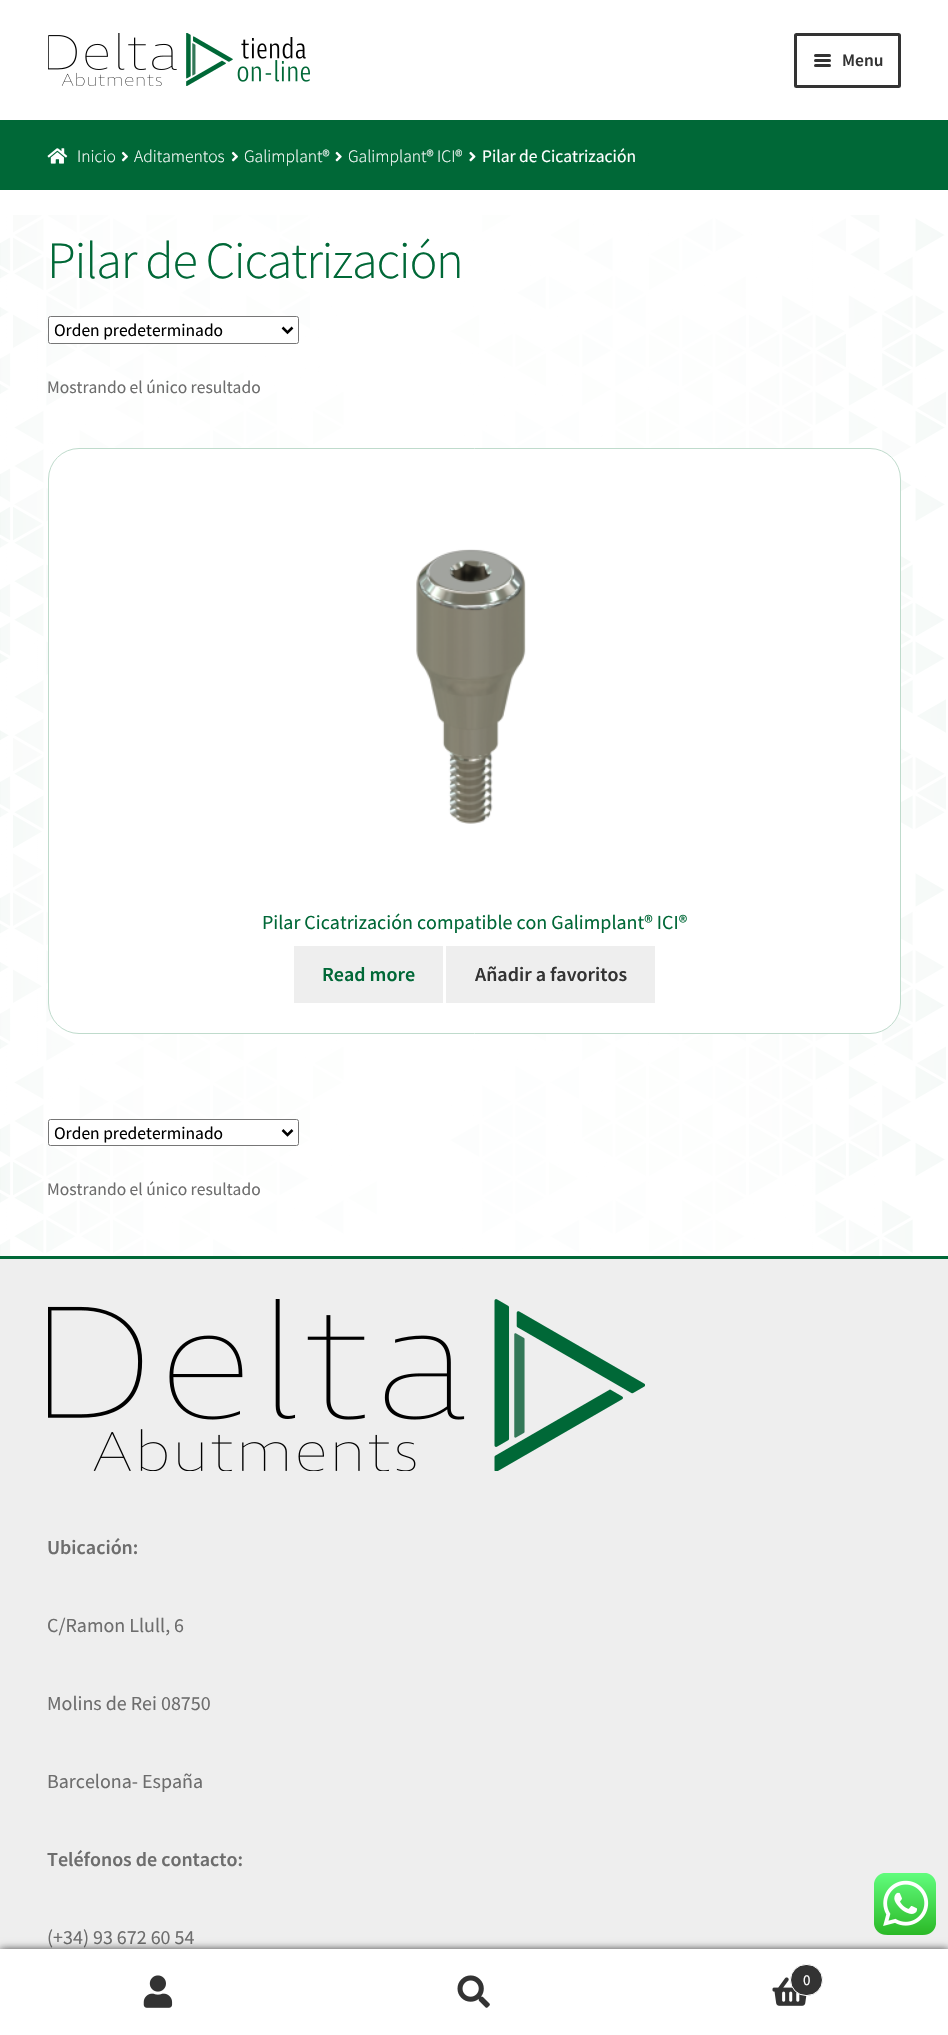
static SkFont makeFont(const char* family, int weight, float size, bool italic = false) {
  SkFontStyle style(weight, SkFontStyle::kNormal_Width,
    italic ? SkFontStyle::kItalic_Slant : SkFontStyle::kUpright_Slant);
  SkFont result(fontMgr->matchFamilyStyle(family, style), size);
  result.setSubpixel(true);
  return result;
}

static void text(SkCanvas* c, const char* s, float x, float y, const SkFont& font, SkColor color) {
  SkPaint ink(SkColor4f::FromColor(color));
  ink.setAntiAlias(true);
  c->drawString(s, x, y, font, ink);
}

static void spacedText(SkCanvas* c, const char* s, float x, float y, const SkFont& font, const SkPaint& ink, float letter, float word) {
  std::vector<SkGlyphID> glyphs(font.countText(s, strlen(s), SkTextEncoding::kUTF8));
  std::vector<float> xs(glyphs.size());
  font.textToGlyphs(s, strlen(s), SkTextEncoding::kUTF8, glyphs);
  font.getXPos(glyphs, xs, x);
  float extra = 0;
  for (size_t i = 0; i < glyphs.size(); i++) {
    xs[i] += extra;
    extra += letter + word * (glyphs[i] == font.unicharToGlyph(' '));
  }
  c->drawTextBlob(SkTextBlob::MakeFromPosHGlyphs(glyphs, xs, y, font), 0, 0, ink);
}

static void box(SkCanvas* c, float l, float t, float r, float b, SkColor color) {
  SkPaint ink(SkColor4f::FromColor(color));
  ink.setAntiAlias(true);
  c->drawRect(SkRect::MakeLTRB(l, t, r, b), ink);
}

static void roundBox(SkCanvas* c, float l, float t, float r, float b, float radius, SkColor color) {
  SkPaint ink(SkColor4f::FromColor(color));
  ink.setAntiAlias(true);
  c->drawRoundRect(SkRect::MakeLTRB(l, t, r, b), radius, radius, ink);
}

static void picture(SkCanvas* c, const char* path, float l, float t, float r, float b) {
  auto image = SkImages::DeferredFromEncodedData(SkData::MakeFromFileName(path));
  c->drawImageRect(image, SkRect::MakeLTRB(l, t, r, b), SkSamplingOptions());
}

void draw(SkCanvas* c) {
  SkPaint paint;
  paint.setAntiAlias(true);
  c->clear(0xffffffff);
  picture(c, "img_01.png", 48, 33, 310, 86);
  paint.setStyle(SkPaint::kStroke_Style);
  paint.setStrokeWidth(3);
  paint.setColor(0xff333333);
  c->drawRoundRect(SkRect::MakeLTRB(795.5f, 34.5f, 899.5f, 86.5f), 1, 1, paint);
  roundBox(c, 814, 54, 831, 57, 1.5f, 0xff333333);
  roundBox(c, 814, 59, 831, 62, 1.5f, 0xff333333);
  SkFont face1 = makeFont("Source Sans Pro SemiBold", 600, 17.5f);
  text(c, "Menu", 842, 66, face1, 0xff333333);
  roundBox(c, 814, 64, 831, 67, 1.5f, 0xff333333);
  box(c, 0, 120, 948, 190, 0xff006837);
  picture(c, "img_02.png", 47, 148, 68, 164);
  SkFont face2 = makeFont("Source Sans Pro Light", 300, 17.5f);
  text(c, "Inicio", 77, 162, face2, 0xffffffff);
  picture(c, "img_03.png", 121, 151, 128, 162);
  text(c, "Aditamentos", 134, 162, face2, 0xffffffff);
  picture(c, "img_03.png", 231, 151, 238, 162);
  text(c, "Galimplant®", 244, 162, face2, 0xffffffff);
  picture(c, "img_04.png", 335, 151, 342, 162);
  text(c, "Galimplant® ICI®", 348, 162, face2, 0xffffffff);
  picture(c, "img_05.png", 469, 151, 476, 162);
  SkFont face3 = makeFont("Source Sans Pro", 400, 17.5f);
  text(c, "Pilar de Cicatrización", 482, 162, face3, 0xffffffff);
  picture(c, "img_06.png", 0, 215, 946, 1256);
  SkFont face4 = makeFont("Source Sans Pro Light", 300, 52.25f);
  paint.setStyle(SkPaint::kFill_Style);
  paint.setColor(0xff006837);
  spacedText(c, "Pilar de Cicatrización", 47, 278, face4, paint, -1.25f, 0);
  paint.setColor(0xffffffff);
  c->drawRoundRect(SkRect::MakeLTRB(48.5f, 316.5f, 298.5f, 343.5f), 2, 2, paint);
  paint.setStyle(SkPaint::kStroke_Style);
  paint.setStrokeWidth(1);
  paint.setColor(0xff767676);
  c->drawRoundRect(SkRect::MakeLTRB(48.5f, 316.5f, 298.5f, 343.5f), 2, 2, paint);
  paint.setStrokeWidth(2.5f);
  paint.setColor(0xff000000);
  c->drawPath(SkPathBuilder().moveTo(282.5f, 327.5f).lineTo(287.5f, 332.5f).lineTo(292.5f, 327.5f).detach(), paint);
  text(c, "Orden predeterminado", 54, 336, face3, 0xff000000);
  text(c, "Mostrando el único resultado", 47, 393, face3, 0xff6d6d6d);
  paint.setStyle(SkPaint::kFill_Style);
  paint.setColor(0xffffffff);
  c->drawRoundRect(SkRect::MakeLTRB(48.5f, 448.5f, 900.5f, 1033.5f), 30.5f, 30.5f, paint);
  paint.setStyle(SkPaint::kStroke_Style);
  paint.setStrokeWidth(1);
  paint.setColor(0xffbfdbcc);
  c->drawRoundRect(SkRect::MakeLTRB(48.5f, 448.5f, 900.5f, 1033.5f), 30.5f, 30.5f, paint);
  picture(c, "img_07.png", 416, 549, 526, 824);
  SkFont face5 = makeFont("Source Sans Pro", 400, 20);
  text(c, "Pilar Cicatrización compatible con Galimplant® ICI®", 262, 929, face5, 0xff006837);
  box(c, 294, 946, 443, 1003, 0xffeeeeee);
  SkFont face6 = makeFont("Source Sans Pro SemiBold", 600, 20);
  text(c, "Read more", 322, 981, face6, 0xff006837);
  box(c, 446, 946, 655, 1003, 0xffeeeeee);
  text(c, "Añadir a favoritos", 475, 981, face6, 0xff333333);
  paint.setStyle(SkPaint::kFill_Style);
  paint.setColor(0xffffffff);
  c->drawRoundRect(SkRect::MakeLTRB(48.5f, 1119.5f, 298.5f, 1145.5f), 2, 2, paint);
  paint.setStyle(SkPaint::kStroke_Style);
  paint.setColor(0xff767676);
  c->drawRoundRect(SkRect::MakeLTRB(48.5f, 1119.5f, 298.5f, 1145.5f), 2, 2, paint);
  paint.setStrokeWidth(2.5f);
  paint.setColor(0xff000000);
  c->drawPath(SkPathBuilder().moveTo(282.5f, 1130).lineTo(287.5f, 1135).lineTo(292.5f, 1130).detach(), paint);
  text(c, "Orden predeterminado", 54, 1139, face3, 0xff000000);
  text(c, "Mostrando el único resultado", 47, 1195, face3, 0xff6d6d6d);
  box(c, 0, 1259, 948, 1949, 0xffeeeeee);
  box(c, 0, 1256, 948, 1259, 0xff006837);
  picture(c, "img_08.png", 48, 1299, 645, 1471);
  text(c, "Ubicación:", 47, 1554, face6, 0xff6d6d6d);
  text(c, "C/Ramon Llull, 6", 47, 1632, face5, 0xff6d6d6d);
  text(c, "Molins de Rei 08750", 47, 1710, face5, 0xff6d6d6d);
  text(c, "Barcelona- España", 47, 1788, face5, 0xff6d6d6d);
  text(c, "Teléfonos de contacto:", 47, 1866, face6, 0xff6d6d6d);
  text(c, "(+34) 93 672 60 54", 47, 1944, face5, 0xff6d6d6d);
  paint.setStyle(SkPaint::kFill_Style);
  paint.setColor(0xb3000000);
  paint.setMaskFilter(SkMaskFilter::MakeBlur(kNormal_SkBlurStyle, 4));
  c->drawRect(SkRect::MakeLTRB(0, 1949, 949, 2035), paint);
  paint.setMaskFilter(nullptr);
  box(c, 0, 1949, 948, 1950, 0xffffffff);
  box(c, 0, 1950, 948, 2035, 0xffffffff);
  picture(c, "img_09.png", 143, 1975, 173, 2008);
  picture(c, "img_10.png", 457, 1975, 490, 2008);
  picture(c, "img_11.png", 772, 1977, 807, 2006);
  paint.setColor(0xff333333);
  c->drawRoundRect(SkRect::MakeLTRB(790.5f, 1964.5f, 822.5f, 1995.5f), 15.5f, 15.5f, paint);
  paint.setStyle(SkPaint::kStroke_Style);
  paint.setStrokeWidth(1);
  paint.setColor(0xffffffff);
  c->drawRoundRect(SkRect::MakeLTRB(790.5f, 1964.5f, 822.5f, 1995.5f), 15.5f, 15.5f, paint);
  SkFont face7 = makeFont("Source Sans Pro", 400, 15);
  text(c, "0", 803, 1985, face7, 0xffffffff);
  picture(c, "img_12.png", 874, 1873, 936, 1935);
}
